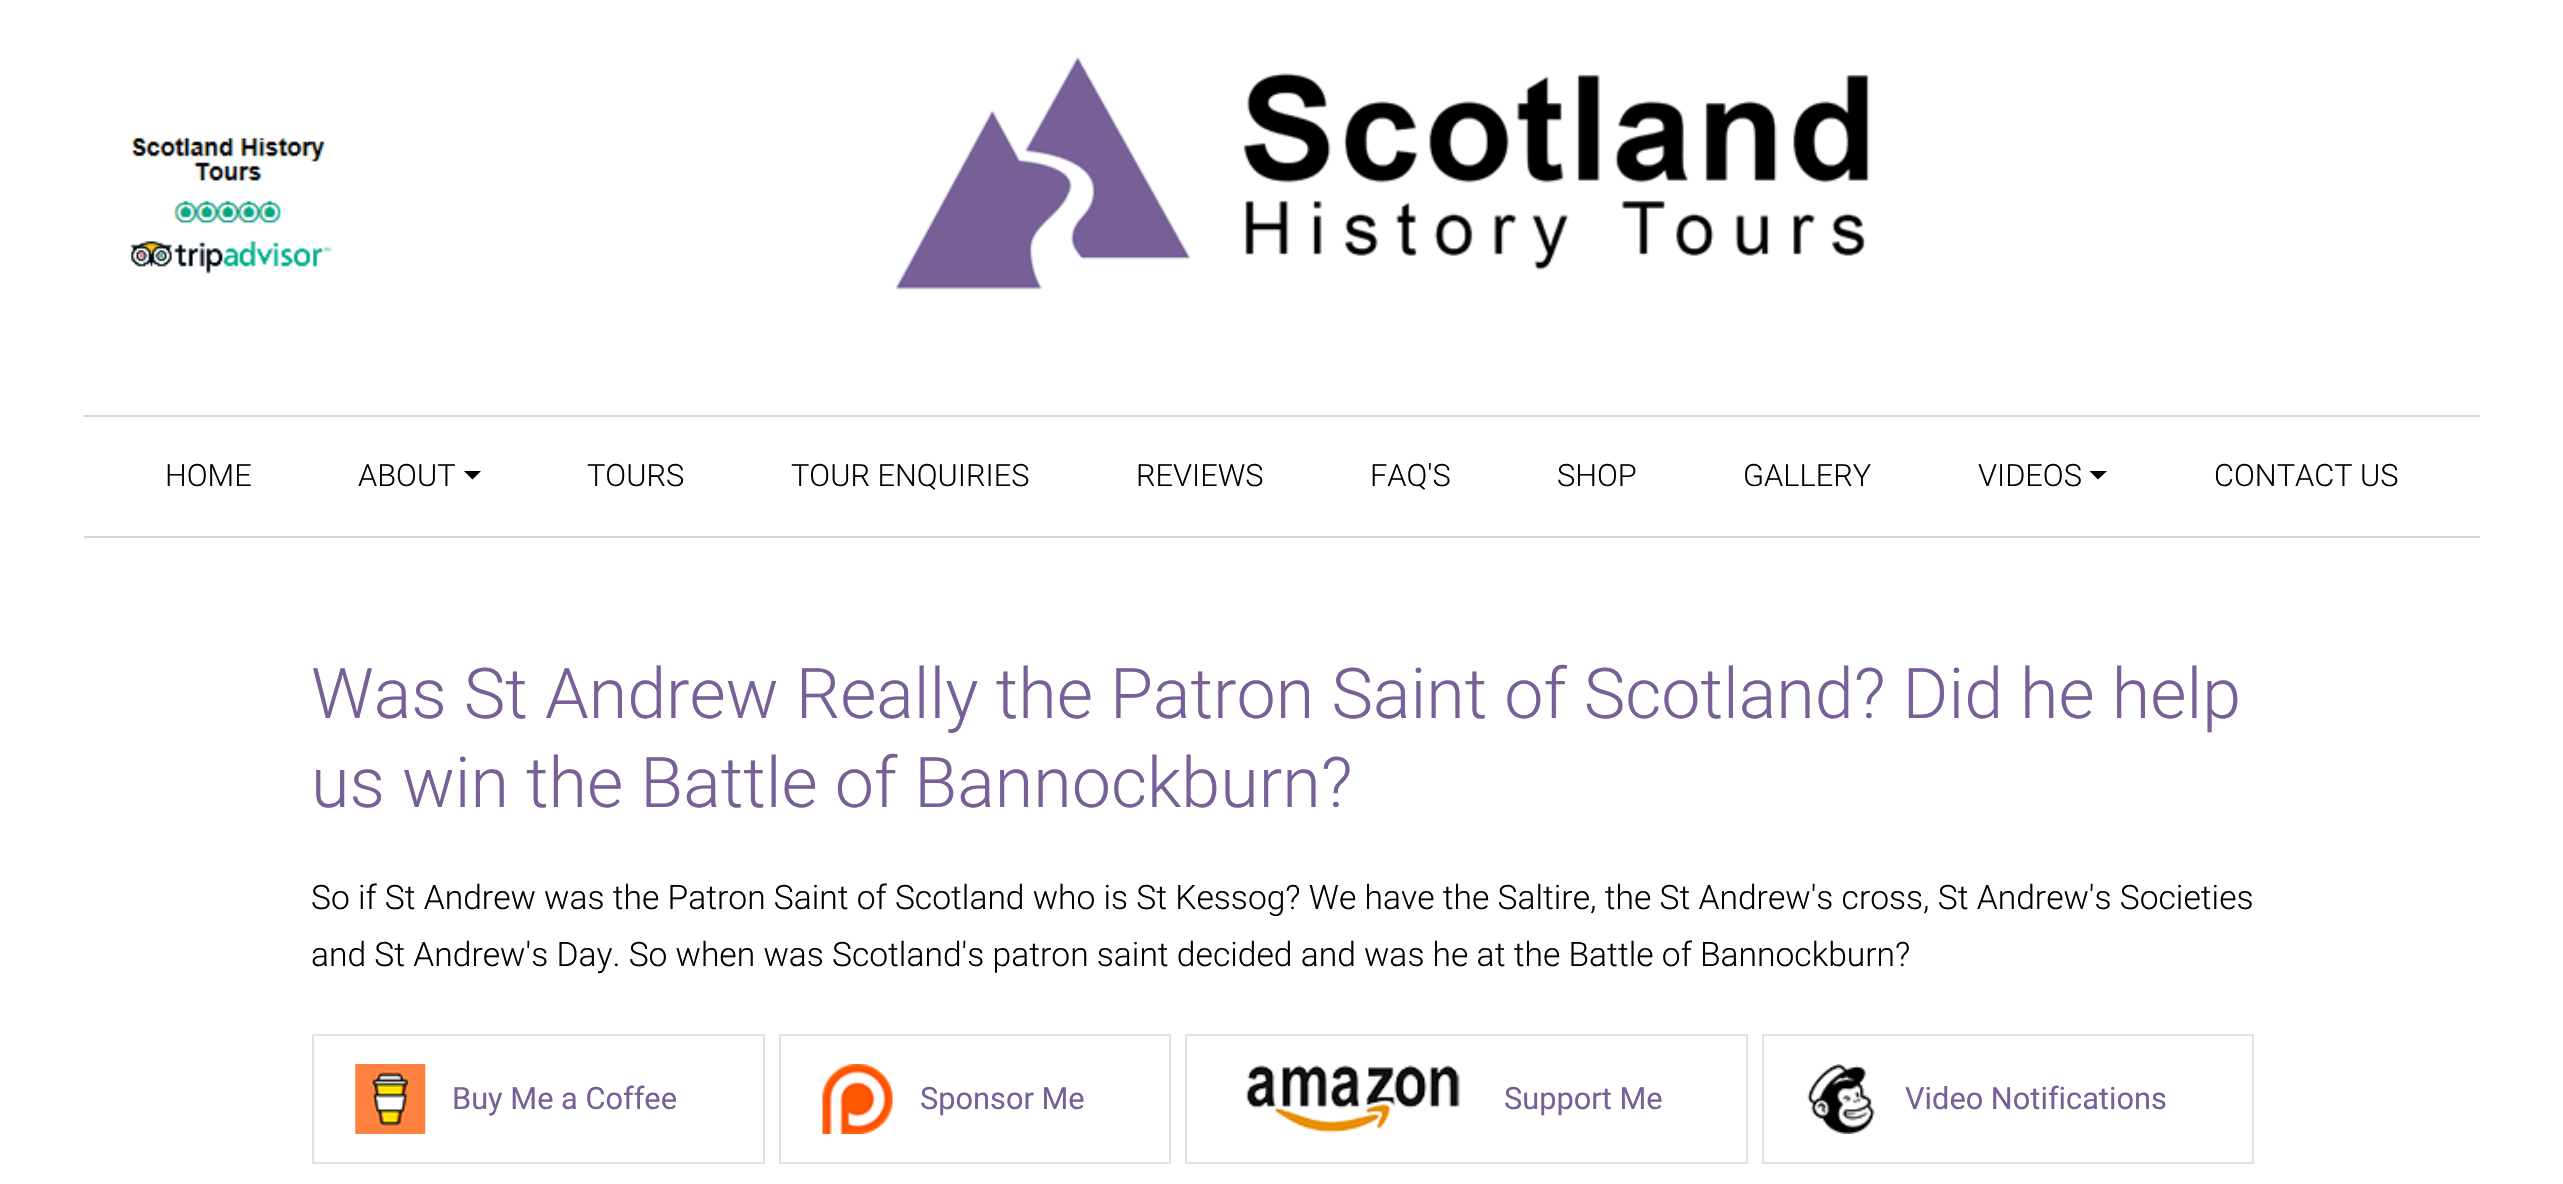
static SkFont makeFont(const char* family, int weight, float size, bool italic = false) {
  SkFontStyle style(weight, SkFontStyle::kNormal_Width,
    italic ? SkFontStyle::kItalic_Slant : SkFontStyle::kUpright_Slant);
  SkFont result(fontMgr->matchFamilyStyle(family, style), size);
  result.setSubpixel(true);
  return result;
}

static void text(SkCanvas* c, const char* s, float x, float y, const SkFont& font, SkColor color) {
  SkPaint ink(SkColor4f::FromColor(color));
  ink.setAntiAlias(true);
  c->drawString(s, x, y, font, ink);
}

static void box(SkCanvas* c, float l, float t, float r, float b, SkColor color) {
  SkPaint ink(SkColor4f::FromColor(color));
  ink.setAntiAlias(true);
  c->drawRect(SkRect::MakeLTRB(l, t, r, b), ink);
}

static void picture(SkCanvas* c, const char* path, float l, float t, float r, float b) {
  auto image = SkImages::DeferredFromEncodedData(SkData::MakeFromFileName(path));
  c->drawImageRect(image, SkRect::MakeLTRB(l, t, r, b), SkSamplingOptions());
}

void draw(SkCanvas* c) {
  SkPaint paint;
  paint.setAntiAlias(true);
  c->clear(0xffffffff);
  picture(c, "img_01.png", 130, 137, 332, 274);
  picture(c, "img_02.png", 895, 57, 1870, 290);
  box(c, 84, 415, 2480, 417, 0xffd8d2e2);
  box(c, 84, 536, 2480, 538, 0xffd8d2e2);
  SkFont face1 = makeFont("Roboto", 300, 30.75f);
  text(c, "HOME", 165, 486, face1, 0xff000000);
  text(c, "ABOUT", 358, 486, face1, 0xff000000);
  paint.setColor(0xff000000);
  c->drawPath(SkPathBuilder().moveTo(464, 471).lineTo(481, 471).lineTo(472.5f, 479.5f).close().detach(), paint);
  text(c, "TOURS", 587, 486, face1, 0xff000000);
  text(c, "TOUR ENQUIRIES", 791, 486, face1, 0xff000000);
  text(c, "REVIEWS", 1136, 486, face1, 0xff000000);
  text(c, "FAQ'S", 1370, 486, face1, 0xff000000);
  text(c, "SHOP", 1557, 486, face1, 0xff000000);
  text(c, "GALLERY", 1743, 486, face1, 0xff000000);
  text(c, "VIDEOS", 1978, 486, face1, 0xff000000);
  c->drawPath(SkPathBuilder().moveTo(2089.5f, 471).lineTo(2107, 471).lineTo(2098, 479.5f).close().detach(), paint);
  text(c, "CONTACT US", 2214, 486, face1, 0xff000000);
  SkFont face2 = makeFont("Roboto", 300, 70);
  text(c, "Was St Andrew Really the Patron Saint of Scotland? Did he help", 311, 718, face2, 0xff766097);
  text(c, "us win the Battle of Bannockburn?", 311, 807, face2, 0xff766097);
  SkFont face3 = makeFont("Roboto", 300, 33.6f);
  text(c, "So if St Andrew was the Patron Saint of Scotland who is St Kessog? We have the Saltire, the St Andrew's cross, St Andrew's Societies", 311, 909, face3, 0xff000000);
  text(c, "and St Andrew's Day. So when was Scotland's patron saint decided and was he at the Battle of Bannockburn?", 311, 966, face3, 0xff000000);
  paint.setStyle(SkPaint::kStroke_Style);
  paint.setStrokeWidth(2);
  paint.setColor(0xffdee2e6);
  c->drawRect(SkRect::MakeLTRB(313, 1035, 764, 1163), paint);
  picture(c, "img_03.png", 355, 1064, 426, 1134);
  SkFont face4 = makeFont("Roboto", 400, 30.75f);
  text(c, "Buy Me a Coffee", 452, 1109, face4, 0xff766097);
  c->drawRect(SkRect::MakeLTRB(780, 1035, 1170, 1163), paint);
  picture(c, "img_04.png", 822, 1064, 893, 1134);
  text(c, "Sponsor Me", 920, 1109, face4, 0xff766097);
  c->drawRect(SkRect::MakeLTRB(1186, 1035, 1747, 1163), paint);
  picture(c, "img_05.png", 1245, 1065, 1460, 1133);
  text(c, "Support Me", 1504, 1109, face4, 0xff766097);
  c->drawRect(SkRect::MakeLTRB(1763, 1035, 2253, 1163), paint);
  picture(c, "img_06.png", 1807, 1064, 1875, 1134);
  text(c, "Video Notifications", 1905, 1109, face4, 0xff766097);
}
